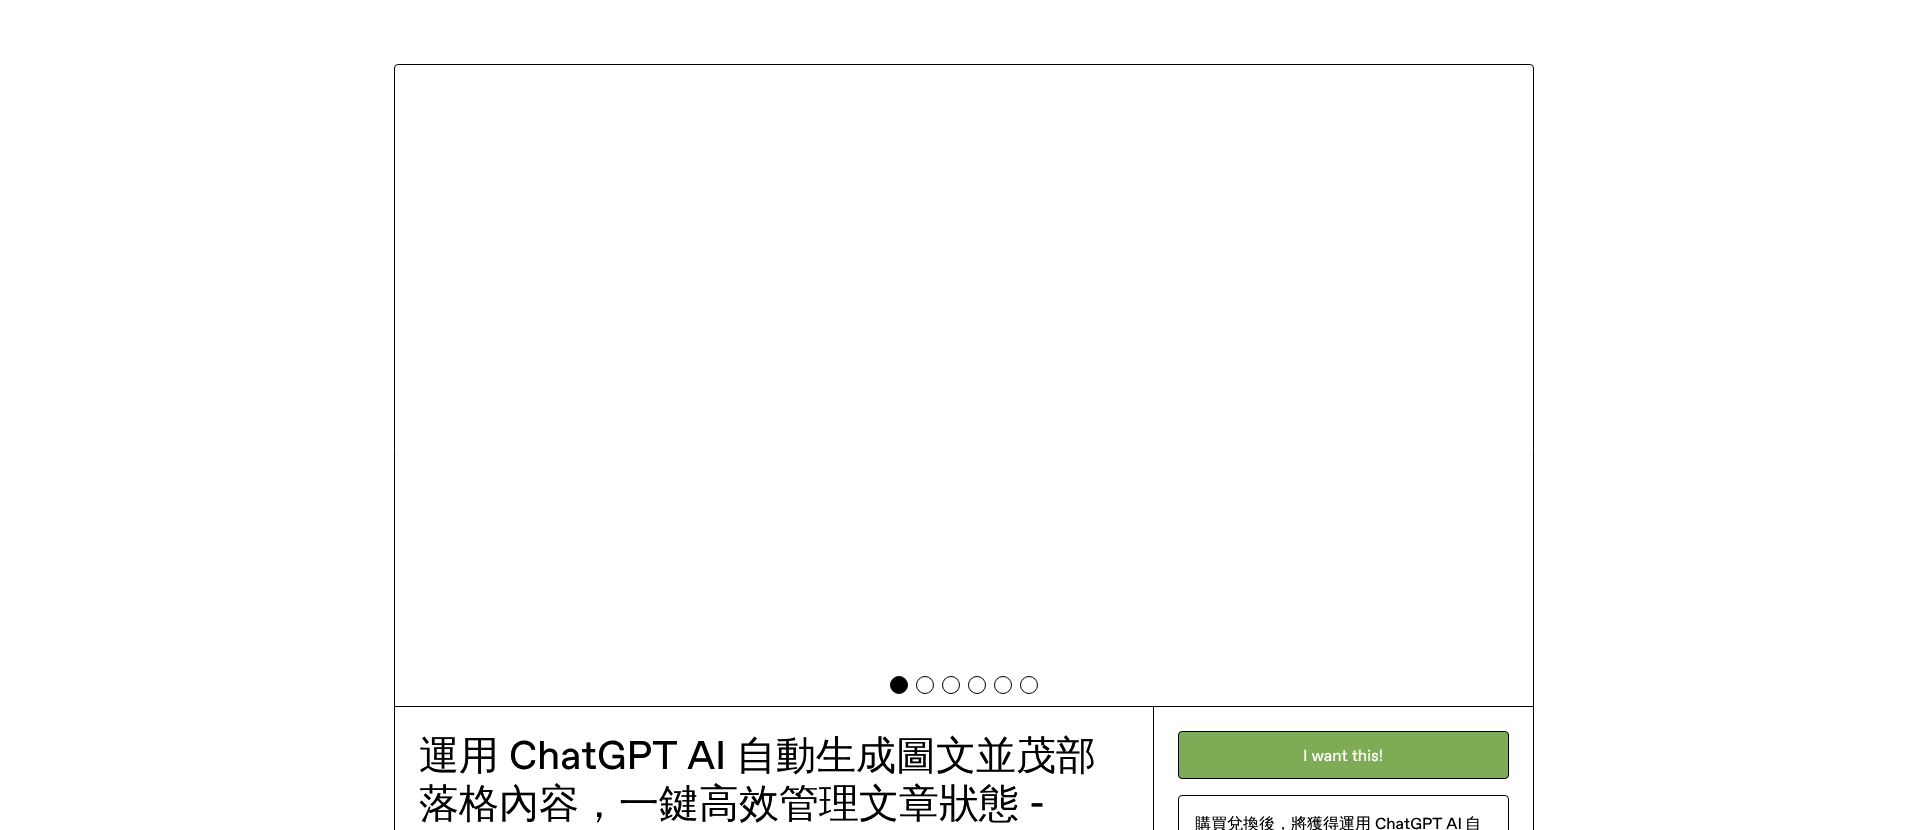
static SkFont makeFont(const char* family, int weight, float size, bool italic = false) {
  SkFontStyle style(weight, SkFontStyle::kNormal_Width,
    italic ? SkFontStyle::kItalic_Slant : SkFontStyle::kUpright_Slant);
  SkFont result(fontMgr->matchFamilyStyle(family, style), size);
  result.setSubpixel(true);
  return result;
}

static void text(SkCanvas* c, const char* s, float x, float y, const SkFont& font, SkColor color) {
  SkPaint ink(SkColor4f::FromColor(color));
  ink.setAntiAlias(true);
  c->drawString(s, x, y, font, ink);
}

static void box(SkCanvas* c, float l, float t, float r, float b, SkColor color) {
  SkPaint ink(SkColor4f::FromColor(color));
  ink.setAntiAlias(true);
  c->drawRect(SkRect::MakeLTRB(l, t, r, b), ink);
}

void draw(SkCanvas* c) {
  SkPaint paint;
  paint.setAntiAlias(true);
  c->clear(0xffffffff);
  paint.setStyle(SkPaint::kStroke_Style);
  paint.setStrokeWidth(1);
  paint.setColor(0xff000000);
  c->drawRoundRect(SkRect::MakeLTRB(394.5f, 64.5f, 1533.5f, 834.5f), 3.5f, 3.5f, paint);
  box(c, 395, 706, 1533, 707, 0xff000000);
  paint.setStyle(SkPaint::kFill_Style);
  c->drawCircle(899, 685, 8.5f, paint);
  paint.setStyle(SkPaint::kStroke_Style);
  c->drawCircle(899, 685, 8.5f, paint);
  c->drawCircle(925, 685, 8.5f, paint);
  c->drawCircle(951, 685, 8.5f, paint);
  c->drawCircle(977, 685, 8.5f, paint);
  c->drawCircle(1003, 685, 8.5f, paint);
  c->drawCircle(1029, 685, 8.5f, paint);
  box(c, 1153, 707, 1154, 830, 0xff000000);
  SkFont face1 = makeFont("WenQuanYi Zen Hei", 500, 40);
  text(c, "運用", 419, 769, face1, 0xff000000);
  SkFont face2 = makeFont("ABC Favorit", 400, 40);
  text(c, "ChatGPT AI", 509, 769, face2, 0xff000000);
  text(c, "自動生成圖文並茂部", 736, 769, face1, 0xff000000);
  text(c, "落格內容，一鍵高效管理文章狀態", 419, 817, face1, 0xff000000);
  text(c, "-", 1029, 817, face2, 0xff000000);
  paint.setStyle(SkPaint::kFill_Style);
  paint.setColor(0xff7eab55);
  c->drawRoundRect(SkRect::MakeLTRB(1178.5f, 731.5f, 1508.5f, 778.5f), 3.5f, 3.5f, paint);
  paint.setStyle(SkPaint::kStroke_Style);
  paint.setColor(0xff000000);
  c->drawRoundRect(SkRect::MakeLTRB(1178.5f, 731.5f, 1508.5f, 778.5f), 3.5f, 3.5f, paint);
  SkFont face3 = makeFont("ABC Favorit", 400, 16);
  text(c, "I want this!", 1303, 761, face3, 0xffffffff);
  c->drawRoundRect(SkRect::MakeLTRB(1178.5f, 795.5f, 1508.5f, 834.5f), 3.5f, 3.5f, paint);
  SkFont face4 = makeFont("WenQuanYi Zen Hei", 500, 16);
  text(c, "購買兌換後，將獲得運用", 1195, 829, face4, 0xff000000);
  text(c, "ChatGPT AI", 1375, 829, face3, 0xff000000);
  text(c, "自", 1465, 829, face4, 0xff000000);
}
